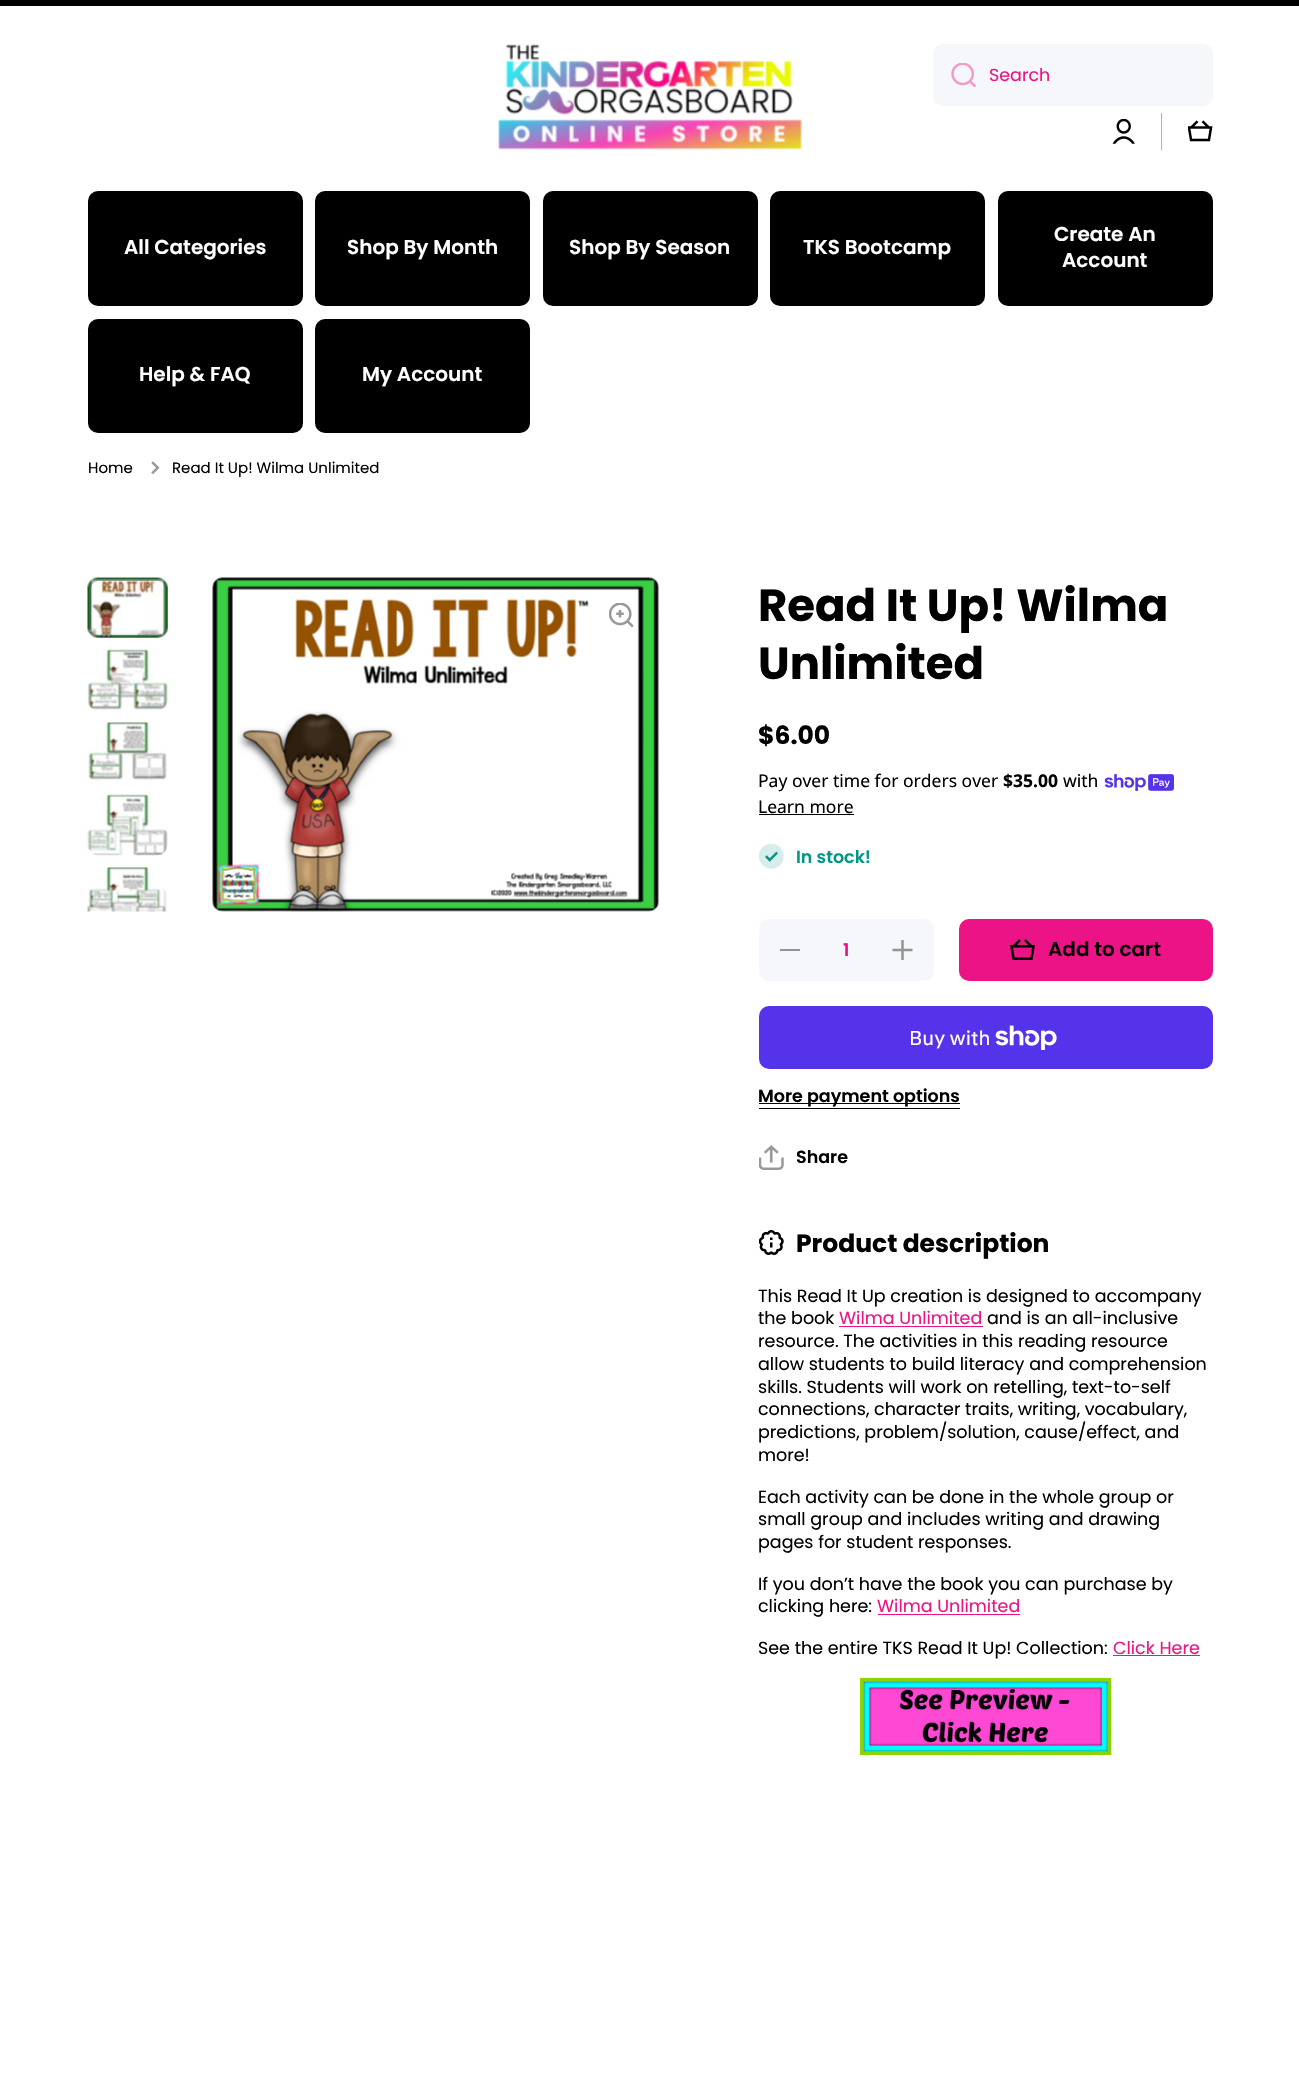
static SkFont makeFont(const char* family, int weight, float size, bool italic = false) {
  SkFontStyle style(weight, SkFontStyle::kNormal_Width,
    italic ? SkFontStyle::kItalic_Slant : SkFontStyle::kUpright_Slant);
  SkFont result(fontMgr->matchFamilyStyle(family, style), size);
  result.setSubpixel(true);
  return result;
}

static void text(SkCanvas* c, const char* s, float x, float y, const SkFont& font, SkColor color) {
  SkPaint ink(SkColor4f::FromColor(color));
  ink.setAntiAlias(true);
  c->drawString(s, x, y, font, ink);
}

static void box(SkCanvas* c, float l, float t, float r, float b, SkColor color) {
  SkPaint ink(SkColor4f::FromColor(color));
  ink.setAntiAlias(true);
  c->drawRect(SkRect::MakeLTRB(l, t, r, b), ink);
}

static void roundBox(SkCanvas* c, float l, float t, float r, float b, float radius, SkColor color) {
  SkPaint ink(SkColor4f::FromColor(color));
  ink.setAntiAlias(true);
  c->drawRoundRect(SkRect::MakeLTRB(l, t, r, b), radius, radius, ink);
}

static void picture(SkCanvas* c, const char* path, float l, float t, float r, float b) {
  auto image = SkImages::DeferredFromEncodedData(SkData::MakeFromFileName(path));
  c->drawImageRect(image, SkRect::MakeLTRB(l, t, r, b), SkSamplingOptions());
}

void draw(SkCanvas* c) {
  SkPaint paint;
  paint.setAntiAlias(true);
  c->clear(0xffffffff);
  box(c, 0, 0, 1299, 6, 0xff000000);
  picture(c, "img_01.png", 498, 44, 802, 150);
  roundBox(c, 933, 44, 1213, 106, 10, 0xfff6f7fa);
  picture(c, "img_02.png", 951, 63, 976, 88);
  SkFont face1 = makeFont("Poppins", 400, 17.5f);
  text(c, "Search", 989, 81, face1, 0xffec1386);
  picture(c, "img_03.png", 1112, 119, 1135, 144);
  box(c, 1161, 113, 1162, 150, 0xffb3b3b3);
  picture(c, "img_04.png", 1188, 120, 1213, 142);
  roundBox(c, 88, 191, 303, 306, 10, 0xff000000);
  SkFont face2 = makeFont("Poppins", 600, 20);
  text(c, "All Categories", 124, 254, face2, 0xffffffff);
  roundBox(c, 315, 191, 530, 306, 10, 0xff000000);
  text(c, "Shop By Month", 347, 254, face2, 0xffffffff);
  roundBox(c, 543, 191, 758, 306, 10, 0xff000000);
  text(c, "Shop By Season", 569, 254, face2, 0xffffffff);
  roundBox(c, 770, 191, 985, 306, 10, 0xff000000);
  text(c, "TKS Bootcamp", 803, 254, face2, 0xffffffff);
  roundBox(c, 998, 191, 1213, 306, 10, 0xff000000);
  text(c, "Create An", 1054, 241, face2, 0xffffffff);
  text(c, "Account", 1062, 267, face2, 0xffffffff);
  roundBox(c, 88, 319, 303, 433, 10, 0xff000000);
  text(c, "Help & FAQ", 139, 381, face2, 0xffffffff);
  roundBox(c, 315, 319, 530, 433, 10, 0xff000000);
  text(c, "My Account", 362, 381, face2, 0xffffffff);
  SkFont face3 = makeFont("Poppins", 400, 15);
  text(c, "Home", 88, 473, face3, 0xff000000);
  picture(c, "img_05.png", 151, 461, 160, 474);
  text(c, "Read It Up! Wilma Unlimited", 172, 473, face3, 0xff000000);
  picture(c, "img_06.png", 87, 577, 168, 638);
  paint.setStyle(SkPaint::kStroke_Style);
  paint.setStrokeWidth(3);
  paint.setColor(0x4d000000);
  c->drawRoundRect(SkRect::MakeLTRB(89.5f, 579.5f, 166.5f, 636.5f), 8.5f, 8.5f, paint);
  picture(c, "img_07.png", 87, 649, 168, 710);
  picture(c, "img_08.png", 87, 722, 167, 781);
  picture(c, "img_09.png", 87, 794, 168, 856);
  picture(c, "img_10.png", 87, 867, 167, 912);
  picture(c, "img_11.png", 212, 577, 660, 912);
  picture(c, "img_12.png", 609, 603, 634, 628);
  SkFont face4 = makeFont("Poppins", 700, 45);
  text(c, "Read It Up! Wilma", 758, 621, face4, 0xff000000);
  text(c, "Unlimited", 758, 679, face4, 0xff000000);
  SkFont face5 = makeFont("Poppins", 700, 25);
  text(c, "$6.00", 758, 744, face5, 0xff000000);
  SkFont face6 = makeFont("Noto Sans", 400, 17.5f);
  text(c, "Pay over time for orders over", 758, 787, face6, 0xff000000);
  SkFont face7 = makeFont("Noto Sans", 700, 17.5f);
  text(c, "$35.00", 1003, 787, face7, 0xff000000);
  text(c, "with", 1063, 787, face6, 0xff000000);
  picture(c, "img_13.png", 1104, 774, 1174, 791);
  text(c, "Learn more", 758, 813, face6, 0xff000000);
  box(c, 759, 814, 854, 815, 0xff000000);
  picture(c, "img_14.png", 759, 844, 784, 869);
  SkFont face8 = makeFont("Poppins", 600, 17.5f);
  text(c, "In stock!", 796, 863, face8, 0xff009688);
  roundBox(c, 759, 919, 934, 981, 10, 0xfff6f7fa);
  box(c, 780, 949, 800, 951, 0xff949496);
  text(c, "1", 843, 956, face8, 0xffec1386);
  picture(c, "img_15.png", 892, 940, 913, 960);
  roundBox(c, 959, 919, 1213, 981, 10, 0xffec1386);
  picture(c, "img_16.png", 1010, 939, 1035, 960);
  text(c, "Add to cart", 1048, 956, face2, 0xff000000);
  roundBox(c, 759, 1006, 1213, 1069, 10, 0xff5433eb);
  SkFont face9 = makeFont("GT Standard", 400, 20);
  text(c, "Buy with", 909, 1045, face9, 0xffffffff);
  picture(c, "img_17.png", 995, 1025, 1057, 1050);
  box(c, 759, 1103, 960, 1104, 0xff000000);
  text(c, "More payment options", 758, 1102, face8, 0xff000000);
  box(c, 759, 1108, 960, 1109, 0xff000000);
  picture(c, "img_18.png", 759, 1145, 784, 1170);
  text(c, "Share", 796, 1163, face8, 0xff000000);
  picture(c, "img_19.png", 759, 1230, 784, 1255);
  text(c, "Product description", 796, 1252, face5, 0xff000000);
  text(c, "This Read It Up creation is designed to accompany", 758, 1302, face1, 0xff000000);
  text(c, "the book", 758, 1324, face1, 0xff000000);
  text(c, "Wilma Unlimited", 839, 1324, face1, 0xffec1386);
  box(c, 839, 1326, 983, 1327, 0xffec1386);
  text(c, "and is an all-inclusive", 987, 1324, face1, 0xff000000);
  text(c, "resource. The activities in this reading resource", 758, 1347, face1, 0xff000000);
  text(c, "allow students to build literacy and comprehension", 758, 1370, face1, 0xff000000);
  text(c, "skills. Students will work on retelling, text-to-self", 758, 1393, face1, 0xff000000);
  text(c, "connections, character traits, writing, vocabulary,", 758, 1415, face1, 0xff000000);
  text(c, "predictions, problem/solution, cause/effect, and", 758, 1438, face1, 0xff000000);
  text(c, "more!", 758, 1461, face1, 0xff000000);
  text(c, "Each activity can be done in the whole group or", 758, 1503, face1, 0xff000000);
  text(c, "small group and includes writing and drawing", 758, 1525, face1, 0xff000000);
  text(c, "pages for student responses.", 758, 1548, face1, 0xff000000);
  text(c, "If you don’t have the book you can purchase by", 758, 1590, face1, 0xff000000);
  text(c, "clicking here:", 758, 1612, face1, 0xff000000);
  text(c, "Wilma Unlimited", 877, 1612, face1, 0xffec1386);
  box(c, 878, 1614, 1020, 1615, 0xffec1386);
  text(c, "See the entire TKS Read It Up! Collection:", 758, 1654, face1, 0xff000000);
  text(c, "Click Here", 1113, 1654, face1, 0xffec1386);
  box(c, 1113, 1655, 1200, 1656, 0xffec1386);
  picture(c, "img_20.png", 860, 1678, 1112, 1756);
}
